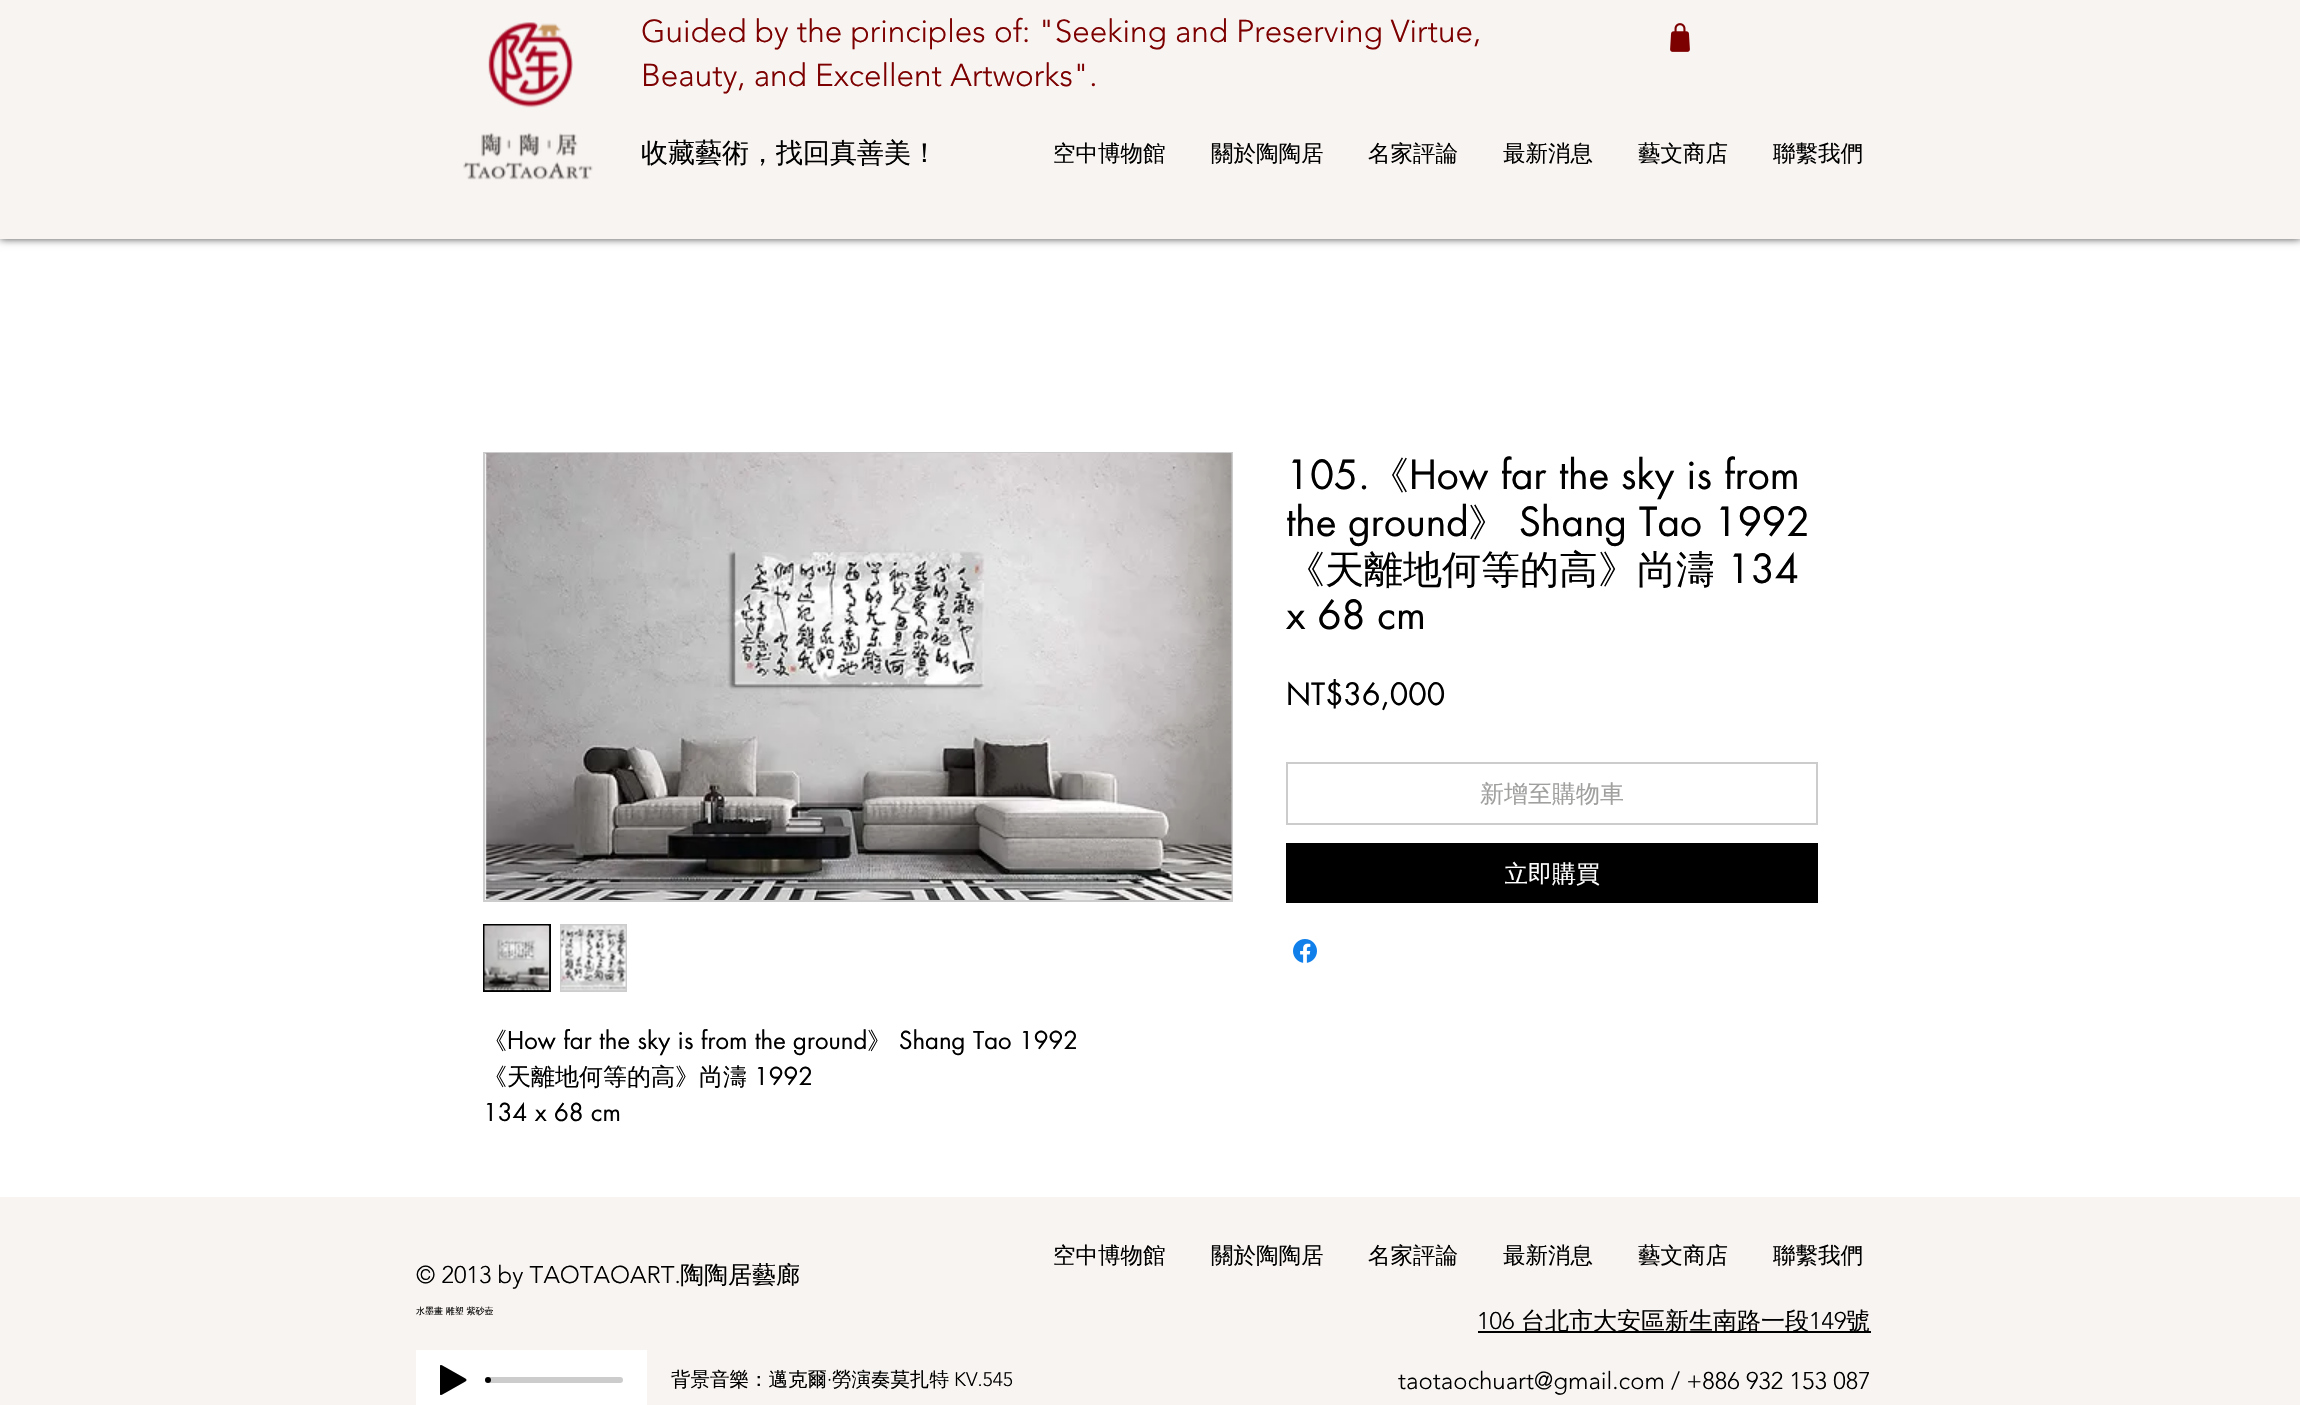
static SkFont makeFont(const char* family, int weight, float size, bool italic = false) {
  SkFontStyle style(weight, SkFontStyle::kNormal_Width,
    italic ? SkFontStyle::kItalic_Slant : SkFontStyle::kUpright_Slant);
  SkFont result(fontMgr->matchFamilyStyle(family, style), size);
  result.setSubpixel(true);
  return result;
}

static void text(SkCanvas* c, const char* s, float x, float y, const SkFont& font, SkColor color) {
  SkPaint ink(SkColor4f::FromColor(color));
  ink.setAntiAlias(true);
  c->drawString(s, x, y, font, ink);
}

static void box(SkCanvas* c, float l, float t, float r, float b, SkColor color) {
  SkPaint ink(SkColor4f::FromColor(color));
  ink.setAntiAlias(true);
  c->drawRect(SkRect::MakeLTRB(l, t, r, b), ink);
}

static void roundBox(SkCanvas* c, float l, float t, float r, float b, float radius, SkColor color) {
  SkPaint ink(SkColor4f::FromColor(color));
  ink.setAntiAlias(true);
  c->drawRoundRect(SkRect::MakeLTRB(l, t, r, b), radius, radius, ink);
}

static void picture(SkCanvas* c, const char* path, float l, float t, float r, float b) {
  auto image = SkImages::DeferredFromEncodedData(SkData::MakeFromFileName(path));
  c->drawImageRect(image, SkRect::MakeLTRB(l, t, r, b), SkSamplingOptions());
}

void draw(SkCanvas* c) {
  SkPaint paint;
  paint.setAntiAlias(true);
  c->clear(0xffffffff);
  paint.setColor(0xb3000000);
  paint.setMaskFilter(SkMaskFilter::MakeBlur(kNormal_SkBlurStyle, 4));
  c->drawRect(SkRect::MakeLTRB(0, 0, 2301, 239), paint);
  paint.setMaskFilter(nullptr);
  box(c, 0, 0, 2300, 239, 0xfff8f4f1);
  picture(c, "img_01.png", 488, 22, 573, 108);
  SkFont face1 = makeFont("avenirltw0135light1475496", 300, 31.5f);
  text(c, "Guided by the principles of: \"Seeking and Preserving Virtue,", 641, 42, face1, 0xff7d0000);
  text(c, "Beauty, and Excellent Artworks\".", 641, 86, face1, 0xff7d0000);
  picture(c, "img_02.png", 1670, 23, 1690, 52);
  picture(c, "img_03.png", 463, 132, 593, 180);
  SkFont face2 = makeFont("WenQuanYi Zen Hei", 500, 27);
  text(c, "收藏藝術，找回真善美！", 641, 162, face2, 0xff000000);
  SkFont face3 = makeFont("WenQuanYi Zen Hei", 500, 22.5f);
  text(c, "空中博物館", 1053, 161, face3, 0xff000000);
  text(c, "關於陶陶居", 1211, 161, face3, 0xff000000);
  text(c, "名家評論", 1368, 161, face3, 0xff000000);
  text(c, "最新消息", 1503, 161, face3, 0xff000000);
  text(c, "藝文商店", 1638, 161, face3, 0xff000000);
  text(c, "聯繫我們", 1773, 161, face3, 0xff000000);
  SkFont face4 = makeFont("futura", 400, 39);
  text(c, "105.", 1286, 489, face4, 0xff000000);
  SkFont face5 = makeFont("WenQuanYi Zen Hei", 500, 39);
  text(c, "《", 1370, 489, face5, 0xff000000);
  text(c, "How far the sky is from", 1409, 489, face4, 0xff000000);
  text(c, "the ground", 1286, 536, face4, 0xff000000);
  text(c, "》", 1468, 536, face5, 0xff000000);
  text(c, "Shang Tao 1992", 1519, 536, face4, 0xff000000);
  text(c, "《天離地何等的高》尚濤", 1286, 583, face5, 0xff000000);
  text(c, "134", 1727, 583, face4, 0xff000000);
  text(c, "x 68 cm", 1286, 629, face4, 0xff000000);
  SkFont face6 = makeFont("futura", 400, 30);
  text(c, "NT$36,000", 1286, 705, face6, 0xff000000);
  paint.setStyle(SkPaint::kStroke_Style);
  paint.setStrokeWidth(2);
  paint.setColor(0xffcccccc);
  c->drawRect(SkRect::MakeLTRB(1287, 763, 1817, 824), paint);
  SkFont face7 = makeFont("WenQuanYi Zen Hei", 500, 24);
  text(c, "新增至購物車", 1480, 802, face7, 0xffa0a09f);
  box(c, 1286, 843, 1818, 903, 0xff000000);
  c->save();
  c->clipRect(SkRect::MakeLTRB(1505, 858, 1601, 888));
  text(c, "立即購買", 1504, 882, face7, 0xffffffff);
  c->restore();
  picture(c, "img_04.png", 1293, 939, 1317, 963);
  c->drawRect(SkRect::MakeLTRB(484, 453, 1232, 901), paint);
  picture(c, "img_05.png", 485, 453, 1232, 900);
  paint.setStyle(SkPaint::kFill_Style);
  c->drawRect(SkRect::MakeLTRB(484, 925, 550, 991), paint);
  paint.setStyle(SkPaint::kStroke_Style);
  paint.setColor(0xff000000);
  c->drawRect(SkRect::MakeLTRB(484, 925, 550, 991), paint);
  picture(c, "img_06.png", 484, 925, 550, 991);
  box(c, 560, 924, 627, 992, 0xffcccccc);
  picture(c, "img_07.png", 560, 925, 626, 991);
  text(c, "《", 483, 1049, face7, 0xff000000);
  SkFont face8 = makeFont("futura", 400, 24);
  text(c, "How far the sky is from the ground", 507, 1049, face8, 0xff000000);
  text(c, "》", 867, 1049, face7, 0xff000000);
  text(c, "Shang Tao 1992", 899, 1049, face8, 0xff000000);
  text(c, "《天離地何等的高》尚濤", 483, 1085, face7, 0xff000000);
  text(c, "1992", 754, 1085, face8, 0xff000000);
  text(c, "134 x 68 cm", 483, 1121, face8, 0xff000000);
  box(c, 0, 1197, 2300, 1405, 0xfff8f4f1);
  text(c, "空中博物館", 1053, 1263, face3, 0xff000000);
  text(c, "關於陶陶居", 1211, 1263, face3, 0xff000000);
  text(c, "名家評論", 1368, 1263, face3, 0xff000000);
  text(c, "最新消息", 1503, 1263, face3, 0xff000000);
  text(c, "藝文商店", 1638, 1263, face3, 0xff000000);
  text(c, "聯繫我們", 1773, 1263, face3, 0xff000000);
  SkFont face9 = makeFont("avenirltw0135light1475496", 300, 24);
  text(c, "© 2013 by TAOTAOART.", 416, 1283, face9, 0xff000000);
  text(c, "陶陶居藝廊", 680, 1283, face7, 0xff000000);
  SkFont face10 = makeFont("WenQuanYi Zen Hei", 500, 9);
  text(c, "水墨畫 雕塑 紫砂壺", 416, 1314, face10, 0xff000000);
  text(c, "106", 1477, 1329, face9, 0xff000000);
  box(c, 1478, 1331, 1871, 1333, 0xff000000);
  text(c, "台北市大安區新生南路一段", 1521, 1329, face7, 0xff000000);
  text(c, "149", 1809, 1329, face9, 0xff000000);
  text(c, "號", 1846, 1329, face7, 0xff000000);
  box(c, 416, 1350, 647, 1405, 0xffffffff);
  picture(c, "img_08.png", 440, 1365, 467, 1395);
  roundBox(c, 488, 1377, 623, 1383, 3, 0xffcccccc);
  paint.setStyle(SkPaint::kFill_Style);
  c->drawCircle(488, 1380, 3, paint);
  SkFont face11 = makeFont("WenQuanYi Zen Hei", 500, 19.5f);
  text(c, "背景音樂：邁克爾", 671, 1386, face11, 0xff000000);
  SkFont face12 = makeFont("avenirltw0135light1475496", 300, 19.5f);
  text(c, "·", 827, 1386, face12, 0xff000000);
  text(c, "勞演奏莫扎特", 832, 1386, face11, 0xff000000);
  text(c, "KV.545", 954, 1386, face12, 0xff000000);
  text(c, "taotaochuart@gmail.com / +886 932 153 087", 1398, 1389, face9, 0xff000000);
}
